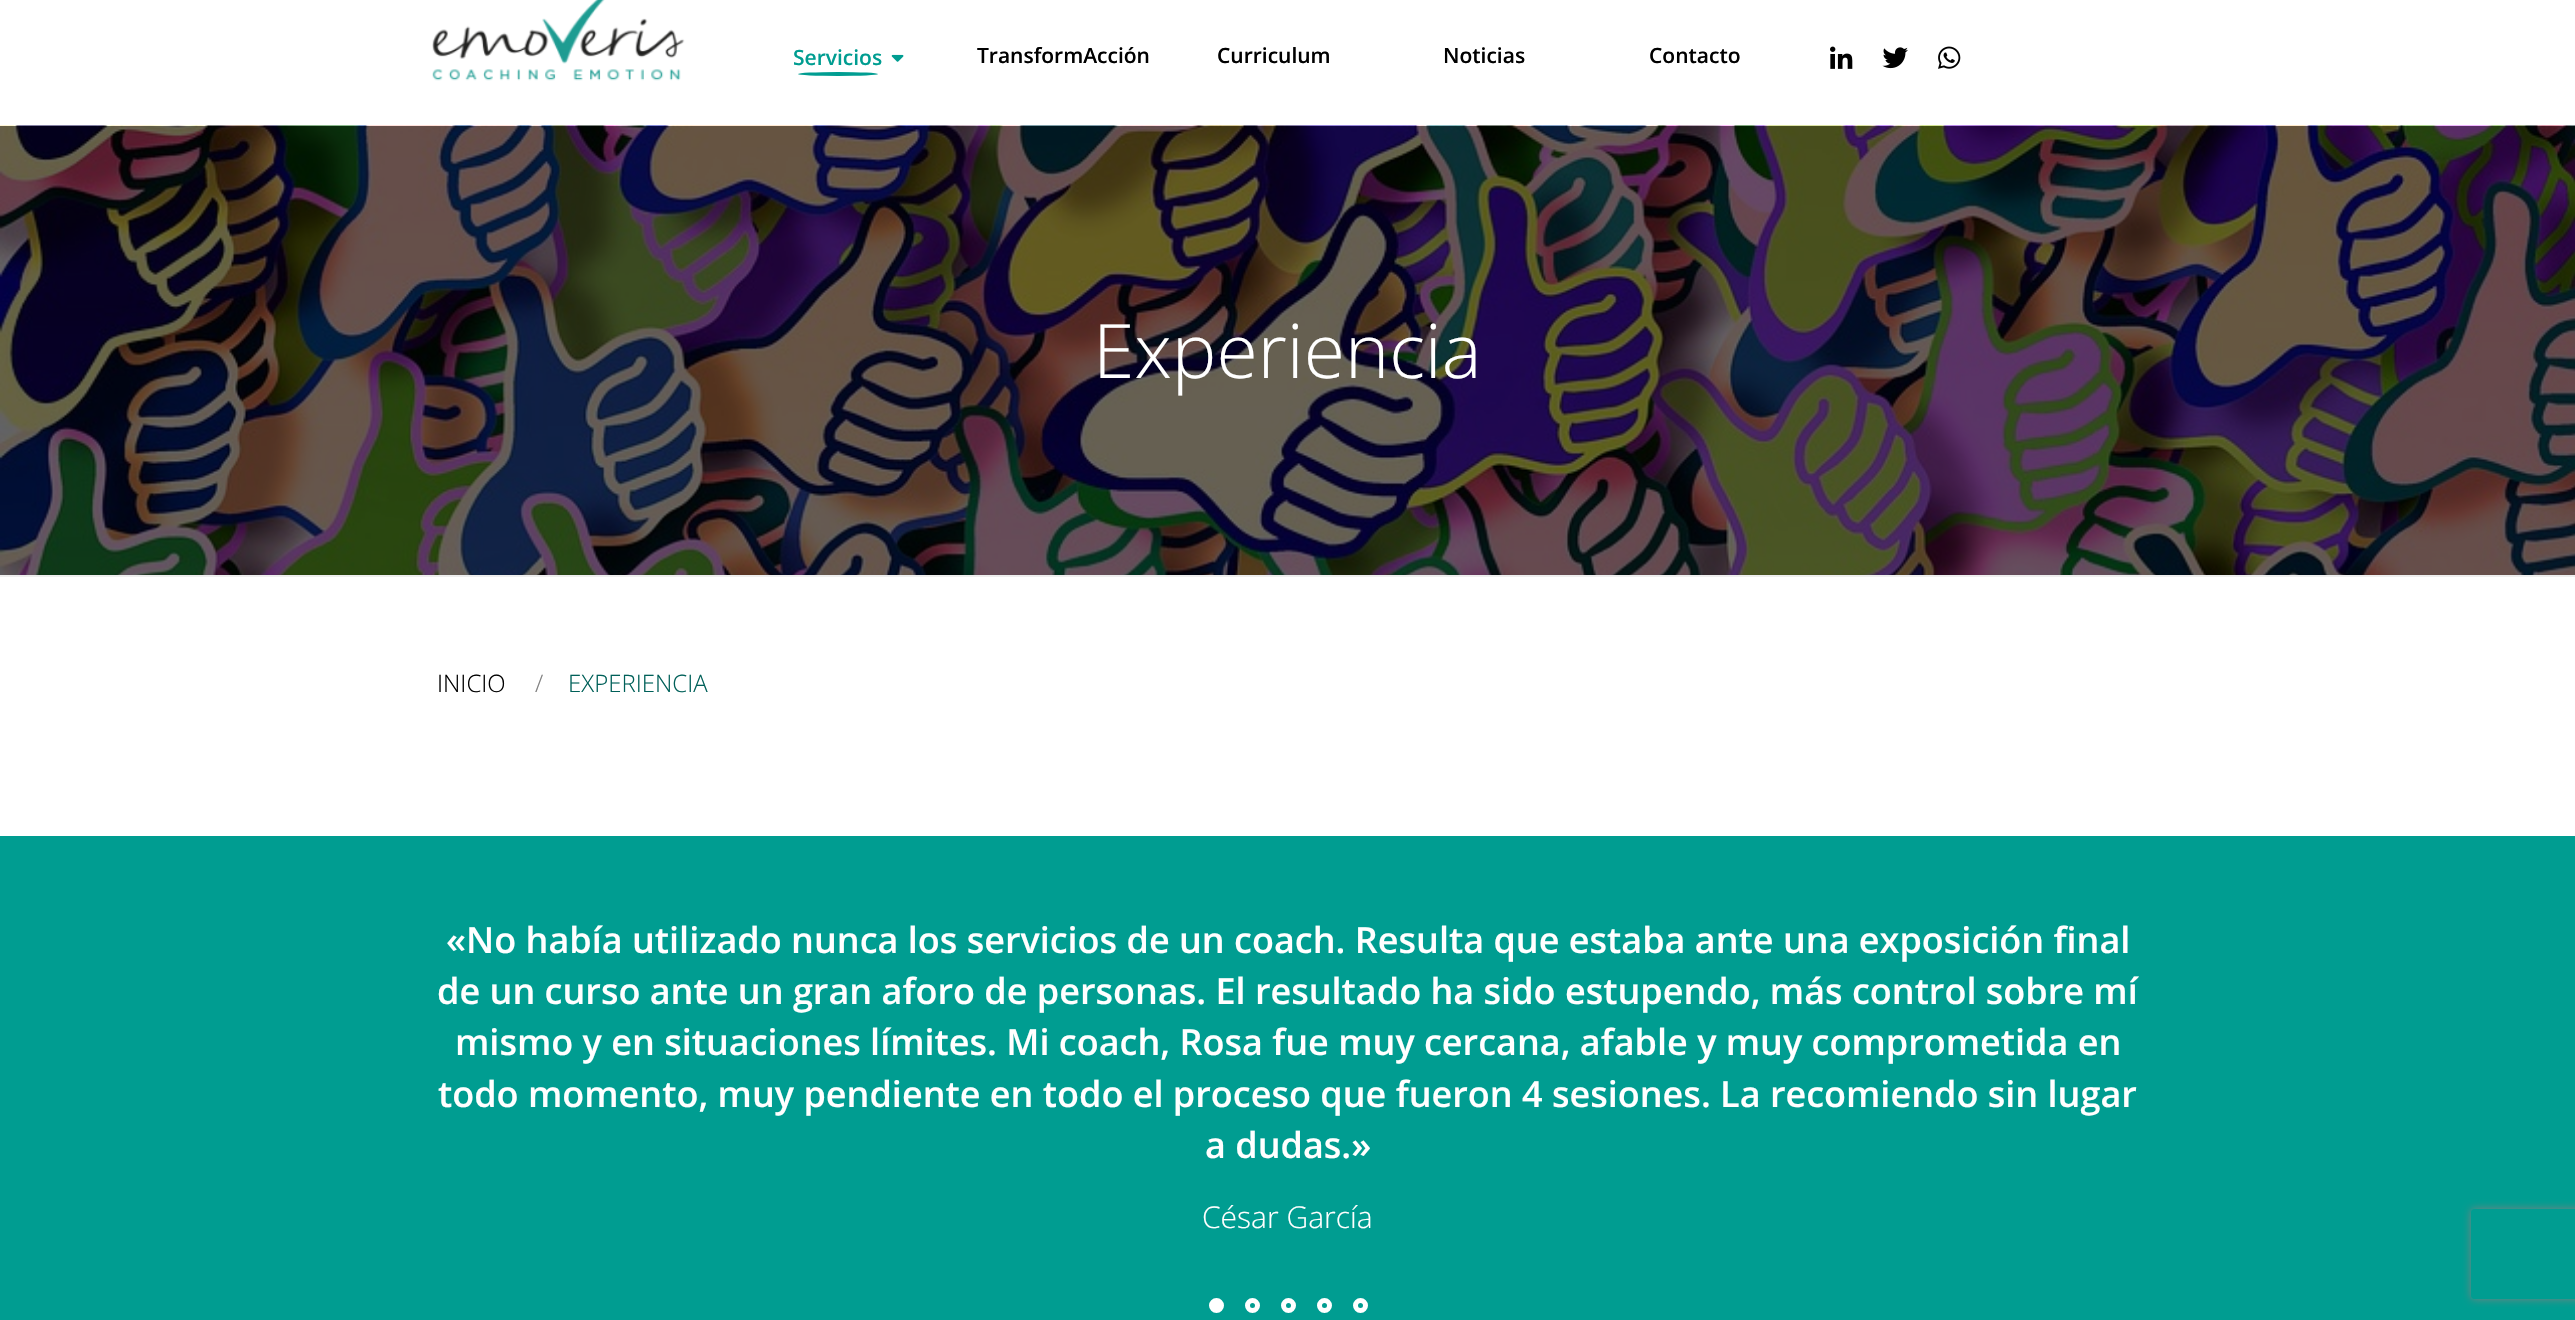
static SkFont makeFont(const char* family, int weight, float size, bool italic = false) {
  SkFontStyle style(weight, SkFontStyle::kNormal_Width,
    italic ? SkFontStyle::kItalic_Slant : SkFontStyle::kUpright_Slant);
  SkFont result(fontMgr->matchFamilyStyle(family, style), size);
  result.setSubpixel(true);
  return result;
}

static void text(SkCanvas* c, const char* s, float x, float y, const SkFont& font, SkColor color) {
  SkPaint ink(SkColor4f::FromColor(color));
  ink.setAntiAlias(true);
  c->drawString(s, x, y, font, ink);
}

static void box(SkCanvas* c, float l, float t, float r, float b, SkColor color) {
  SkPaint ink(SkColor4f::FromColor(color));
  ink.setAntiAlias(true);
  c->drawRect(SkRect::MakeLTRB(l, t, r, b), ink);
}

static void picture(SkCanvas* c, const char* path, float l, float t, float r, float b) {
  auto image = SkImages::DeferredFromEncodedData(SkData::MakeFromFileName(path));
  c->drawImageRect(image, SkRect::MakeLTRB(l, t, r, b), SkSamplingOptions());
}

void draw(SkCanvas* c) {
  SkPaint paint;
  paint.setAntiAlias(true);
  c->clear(0xffffffff);
  picture(c, "img_01.png", 432, 0, 685, 81);
  SkFont face1 = makeFont("Open Sans", 600, 21);
  text(c, "Servicios", 793, 65, face1, 0xff009d91);
  paint.setColor(0xff009d91);
  c->drawOval(SkRect::MakeLTRB(798, 72, 878, 76), paint);
  picture(c, "img_02.png", 891, 54, 904, 62);
  text(c, "TransformAcción", 977, 63, face1, 0xff000000);
  text(c, "Curriculum", 1217, 63, face1, 0xff000000);
  text(c, "Noticias", 1443, 63, face1, 0xff000000);
  text(c, "Contacto", 1649, 63, face1, 0xff000000);
  picture(c, "img_03.png", 1830, 46, 1853, 69);
  picture(c, "img_04.png", 1882, 47, 1908, 69);
  picture(c, "img_05.png", 1938, 46, 1961, 69);
  picture(c, "img_06.png", 0, 125, 2575, 575);
  box(c, 0, 575, 2575, 577, 0xffeeeeee);
  SkFont face2 = makeFont("Open Sans", 300, 75);
  text(c, "Experiencia", 1093, 378, face2, 0xffffffff);
  SkFont face3 = makeFont("Open Sans", 300, 24);
  text(c, "INICIO", 437, 692, face3, 0xff000000);
  text(c, "/", 535, 692, face3, 0xff808080);
  text(c, "EXPERIENCIA", 568, 692, face3, 0xff006059);
  box(c, 0, 836, 2575, 1320, 0xff009d91);
  SkFont face4 = makeFont("Open Sans", 600, 36);
  text(c, "«No había utilizado nunca los servicios de un coach. Resulta que estaba ante una exposición final", 446, 953, face4, 0xffffffff);
  text(c, "de un curso ante un gran aforo de personas. El resultado ha sido estupendo, más control sobre mí", 437, 1004, face4, 0xffffffff);
  text(c, "mismo y en situaciones límites. Mi coach, Rosa fue muy cercana, afable y muy comprometida en", 455, 1055, face4, 0xffffffff);
  text(c, "todo momento, muy pendiente en todo el proceso que fueron 4 sesiones. La recomiendo sin lugar", 438, 1107, face4, 0xffffffff);
  text(c, "a dudas.»", 1205, 1158, face4, 0xffffffff);
  SkFont face5 = makeFont("Open Sans", 300, 30);
  text(c, "César García", 1202, 1228, face5, 0xffffffff);
  paint.setColor(0xffffffff);
  c->drawCircle(1216.5f, 1305.5f, 5, paint);
  paint.setStyle(SkPaint::kStroke_Style);
  paint.setStrokeWidth(5);
  c->drawCircle(1216.5f, 1305.5f, 5, paint);
  c->drawCircle(1252.5f, 1305.5f, 5, paint);
  c->drawCircle(1288.5f, 1305.5f, 5, paint);
  c->drawCircle(1324.5f, 1305.5f, 5, paint);
  c->drawCircle(1360.5f, 1305.5f, 5, paint);
  c->save();
  c->clipPath(SkPathBuilder(SkPathFillType::kEvenOdd).moveTo(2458, 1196).lineTo(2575, 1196).lineTo(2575, 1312).lineTo(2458, 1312).close().moveTo(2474, 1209).lineTo(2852, 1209).cubicTo(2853.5f, 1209, 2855, 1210.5f, 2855, 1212).lineTo(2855, 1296).cubicTo(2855, 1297.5f, 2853.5f, 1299, 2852, 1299).lineTo(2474, 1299).cubicTo(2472.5f, 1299, 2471, 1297.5f, 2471, 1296).lineTo(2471, 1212).cubicTo(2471, 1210.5f, 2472.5f, 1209, 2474, 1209).close().detach(), true);
  paint.setStyle(SkPaint::kFill_Style);
  paint.setColor(0xff808080);
  paint.setMaskFilter(SkMaskFilter::MakeBlur(kNormal_SkBlurStyle, 4));
  c->drawRoundRect(SkRect::MakeLTRB(2471, 1209, 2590, 1299), 3, 3, paint);
  paint.setMaskFilter(nullptr);
  c->restore();
}
